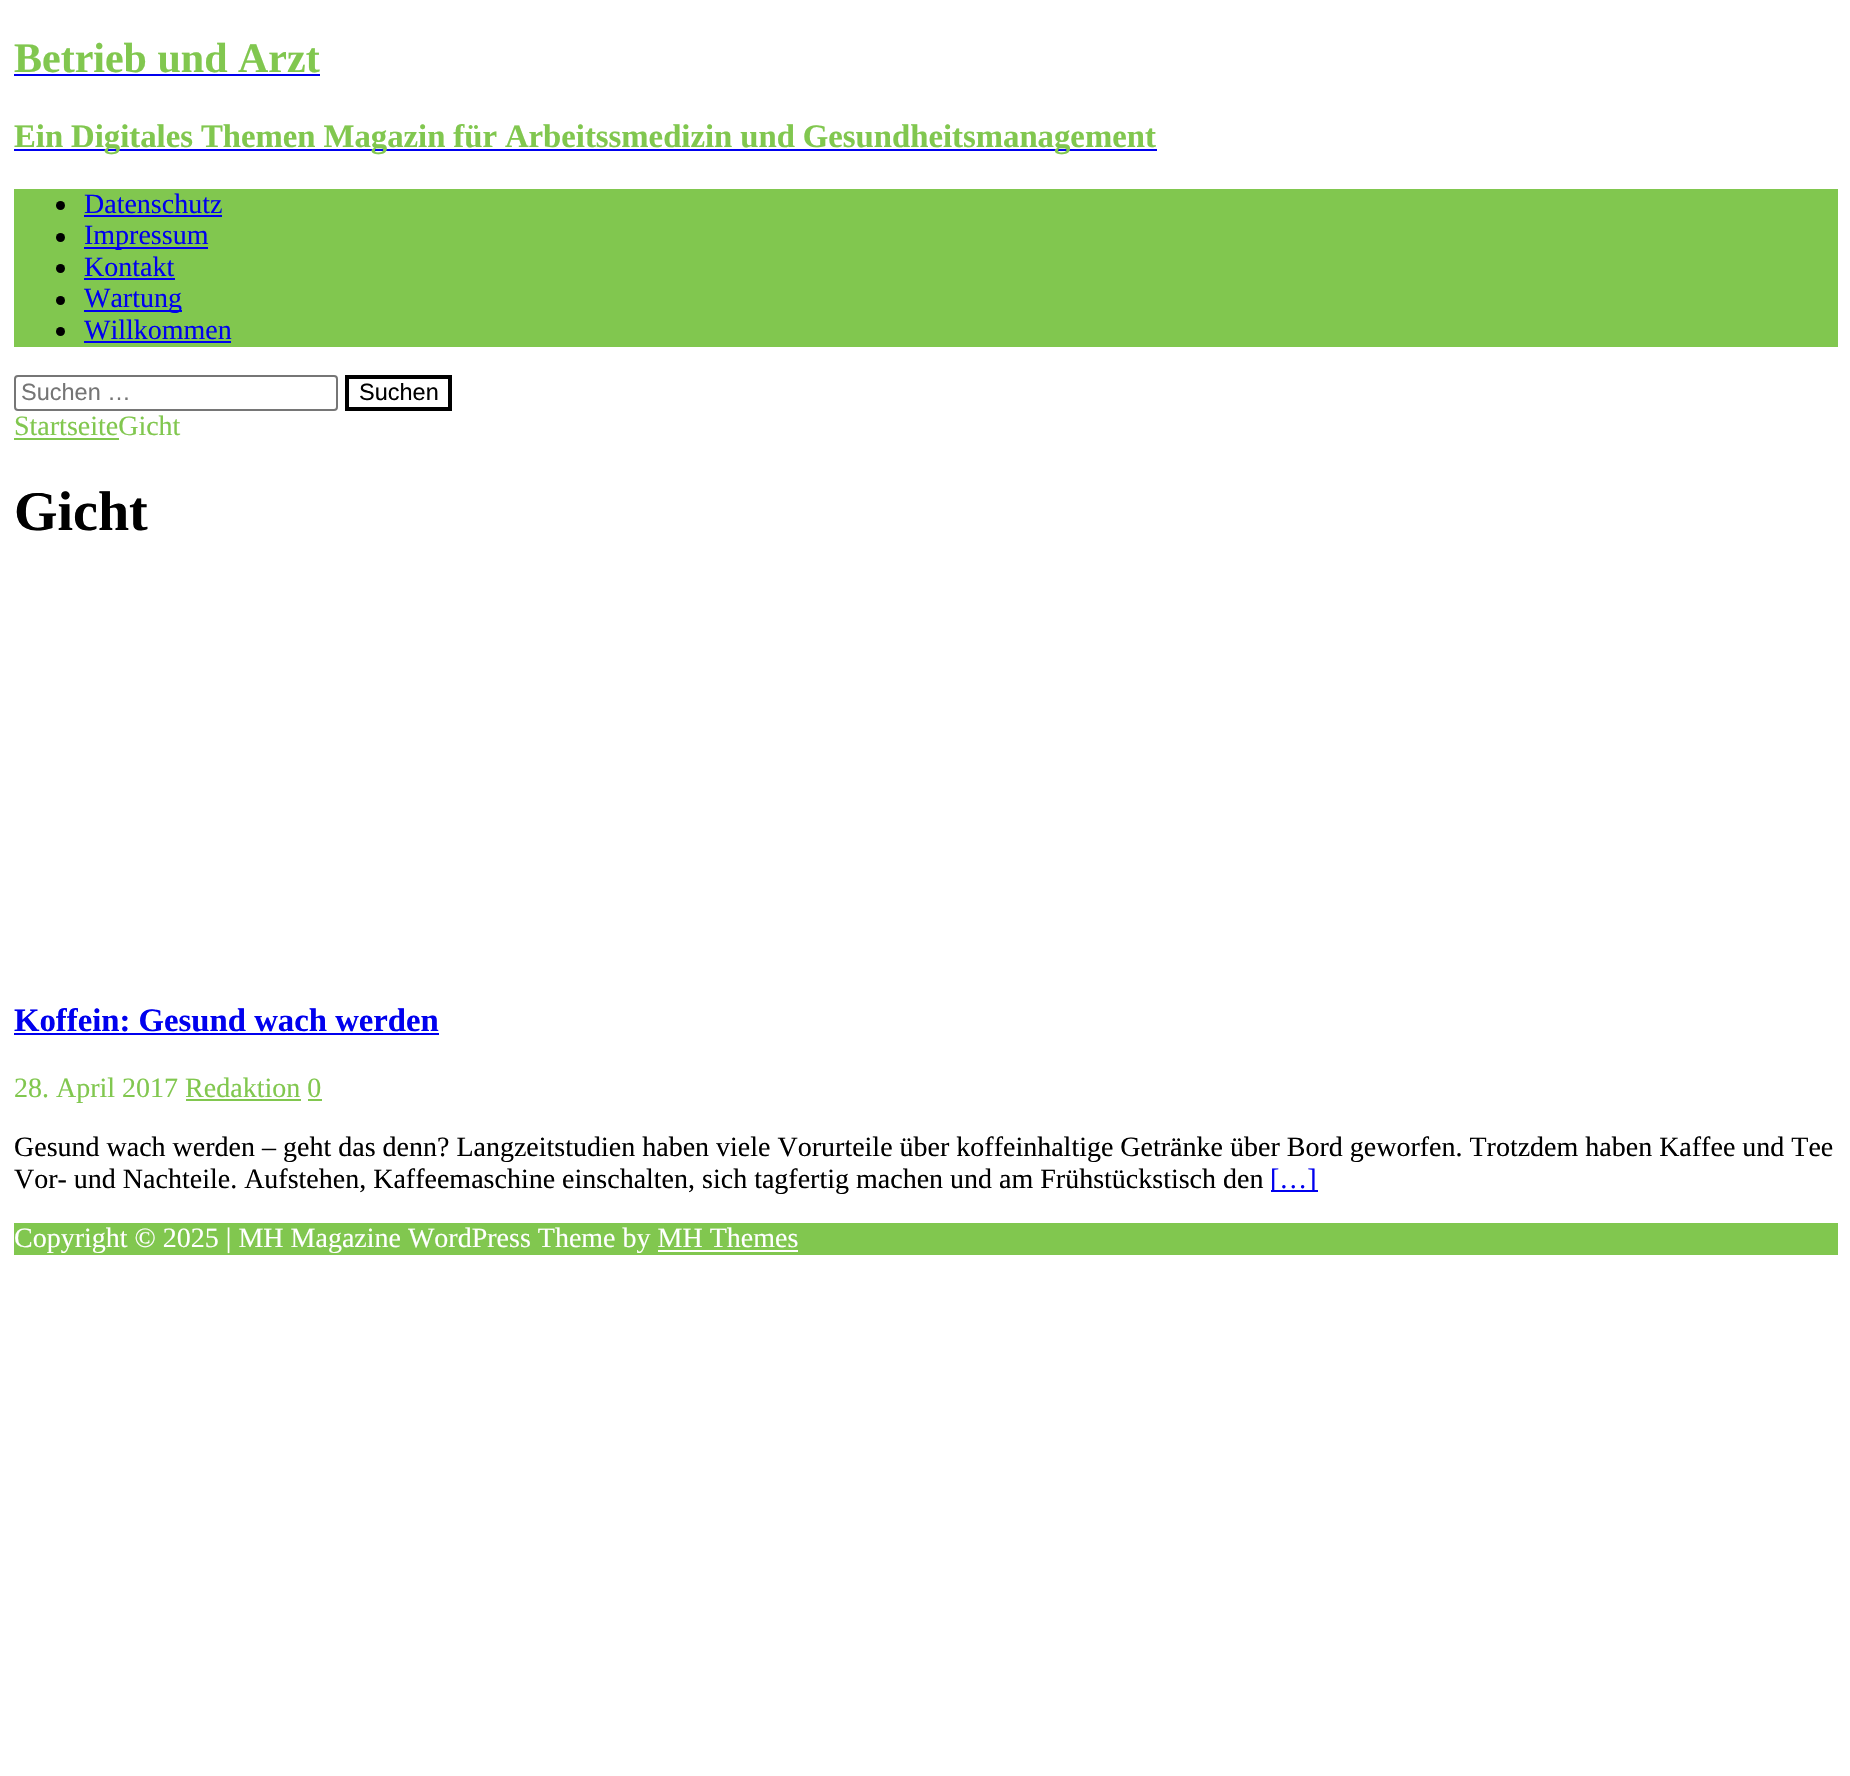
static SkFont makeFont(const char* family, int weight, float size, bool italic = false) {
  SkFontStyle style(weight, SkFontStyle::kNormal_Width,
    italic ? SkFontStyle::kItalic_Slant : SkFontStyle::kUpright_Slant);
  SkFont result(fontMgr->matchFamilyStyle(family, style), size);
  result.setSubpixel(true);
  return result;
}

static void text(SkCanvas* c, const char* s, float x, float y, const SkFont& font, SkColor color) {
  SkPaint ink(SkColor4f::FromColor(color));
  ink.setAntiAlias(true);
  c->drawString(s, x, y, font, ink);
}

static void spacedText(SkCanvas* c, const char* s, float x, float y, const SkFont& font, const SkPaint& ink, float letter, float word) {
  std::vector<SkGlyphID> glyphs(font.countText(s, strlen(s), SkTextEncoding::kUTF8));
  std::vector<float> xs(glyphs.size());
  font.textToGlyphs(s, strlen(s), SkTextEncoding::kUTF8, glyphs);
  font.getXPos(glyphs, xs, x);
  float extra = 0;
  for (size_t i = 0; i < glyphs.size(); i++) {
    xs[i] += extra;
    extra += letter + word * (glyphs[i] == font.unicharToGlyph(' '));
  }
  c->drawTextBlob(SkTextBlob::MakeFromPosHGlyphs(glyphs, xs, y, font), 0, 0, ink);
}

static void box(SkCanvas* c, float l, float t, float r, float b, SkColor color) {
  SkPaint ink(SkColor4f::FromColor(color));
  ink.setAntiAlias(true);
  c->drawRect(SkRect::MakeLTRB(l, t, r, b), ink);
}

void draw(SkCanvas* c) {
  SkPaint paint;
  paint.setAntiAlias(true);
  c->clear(0xffffffff);
  SkFont face1 = makeFont("Liberation Serif", 700, 42);
  text(c, "Betrieb und Arzt", 14, 72, face1, 0xff81c74f);
  box(c, 14, 74, 320, 76, 0xff0000ee);
  box(c, 14, 149, 1157, 151, 0xff0000ee);
  SkFont face2 = makeFont("Liberation Serif", 700, 32.75f);
  paint.setColor(0xff81c74f);
  spacedText(c, "Ein Digitales Themen Magazin für Arbeitssmedizin und Gesundheitsmanagement", 14, 147, face2, paint, 0, -0.25f);
  box(c, 14, 189, 1838, 347, 0xff81c74f);
  paint.setColor(0xff000000);
  c->drawCircle(60.5f, 205.5f, 4.5f, paint);
  SkFont face3 = makeFont("Liberation Serif", 400, 28);
  text(c, "Datenschutz", 84, 213, face3, 0xff0000ee);
  box(c, 84, 215, 222, 217, 0xff0000ee);
  c->drawCircle(60.5f, 237.5f, 4.5f, paint);
  box(c, 84, 247, 208, 249, 0xff0000ee);
  text(c, "Impressum", 84, 244, face3, 0xff0000ee);
  c->drawCircle(60.5f, 268.5f, 4.5f, paint);
  text(c, "Kontakt", 84, 276, face3, 0xff0000ee);
  box(c, 84, 278, 175, 280, 0xff0000ee);
  c->drawCircle(60.5f, 300.5f, 4.5f, paint);
  box(c, 84, 310, 182, 312, 0xff0000ee);
  text(c, "Wartung", 84, 307, face3, 0xff0000ee);
  c->drawCircle(60.5f, 331.5f, 4.5f, paint);
  text(c, "Willkommen", 84, 339, face3, 0xff0000ee);
  box(c, 84, 341, 231, 343, 0xff0000ee);
  paint.setStyle(SkPaint::kStroke_Style);
  paint.setStrokeWidth(2);
  paint.setColor(0xff767676);
  c->drawRoundRect(SkRect::MakeLTRB(15, 376, 337, 410), 3, 3, paint);
  SkFont face4 = makeFont("Liberation Sans", 400, 23.5f);
  text(c, "Suchen …", 21, 400, face4, 0xff757575);
  paint.setStrokeWidth(4);
  paint.setColor(0xff000000);
  c->drawRect(SkRect::MakeLTRB(347, 377, 450, 409), paint);
  text(c, "Suchen", 359, 400, face4, 0xff000000);
  text(c, "StartseiteGicht", 14, 435, face3, 0xff81c74f);
  box(c, 14, 438, 119, 440, 0xff81c74f);
  SkFont face5 = makeFont("Liberation Serif", 700, 56);
  text(c, "Gicht", 14, 530, face5, 0xff000000);
  text(c, "Koffein: Gesund wach werden", 14, 1031, face2, 0xff0000ee);
  box(c, 14, 1033, 439, 1035, 0xff0000ee);
  text(c, "28. April 2017 Redaktion 0", 14, 1097, face3, 0xff81c74f);
  box(c, 186, 1099, 301, 1101, 0xff81c74f);
  box(c, 308, 1099, 322, 1101, 0xff81c74f);
  text(c, "Gesund wach werden – geht das denn? Langzeitstudien haben viele Vorurteile über koffeinhaltige Getränke über Bord geworfen. Trotzdem haben Kaffee und Tee", 14, 1156, face3, 0xff000000);
  text(c, "Vor- und Nachteile. Aufstehen, Kaffeemaschine einschalten, sich tagfertig machen und am Frühstückstisch den", 14, 1188, face3, 0xff000000);
  box(c, 1271, 1190, 1318, 1192, 0xff0000ee);
  text(c, "[…]", 1270, 1188, face3, 0xff0000ee);
  box(c, 14, 1223, 1838, 1255, 0xff81c74f);
  text(c, "Copyright © 2025 | MH Magazine WordPress Theme by MH Themes", 14, 1247, face3, 0xffffffff);
  box(c, 658, 1250, 798, 1252, 0xffffffff);
}
